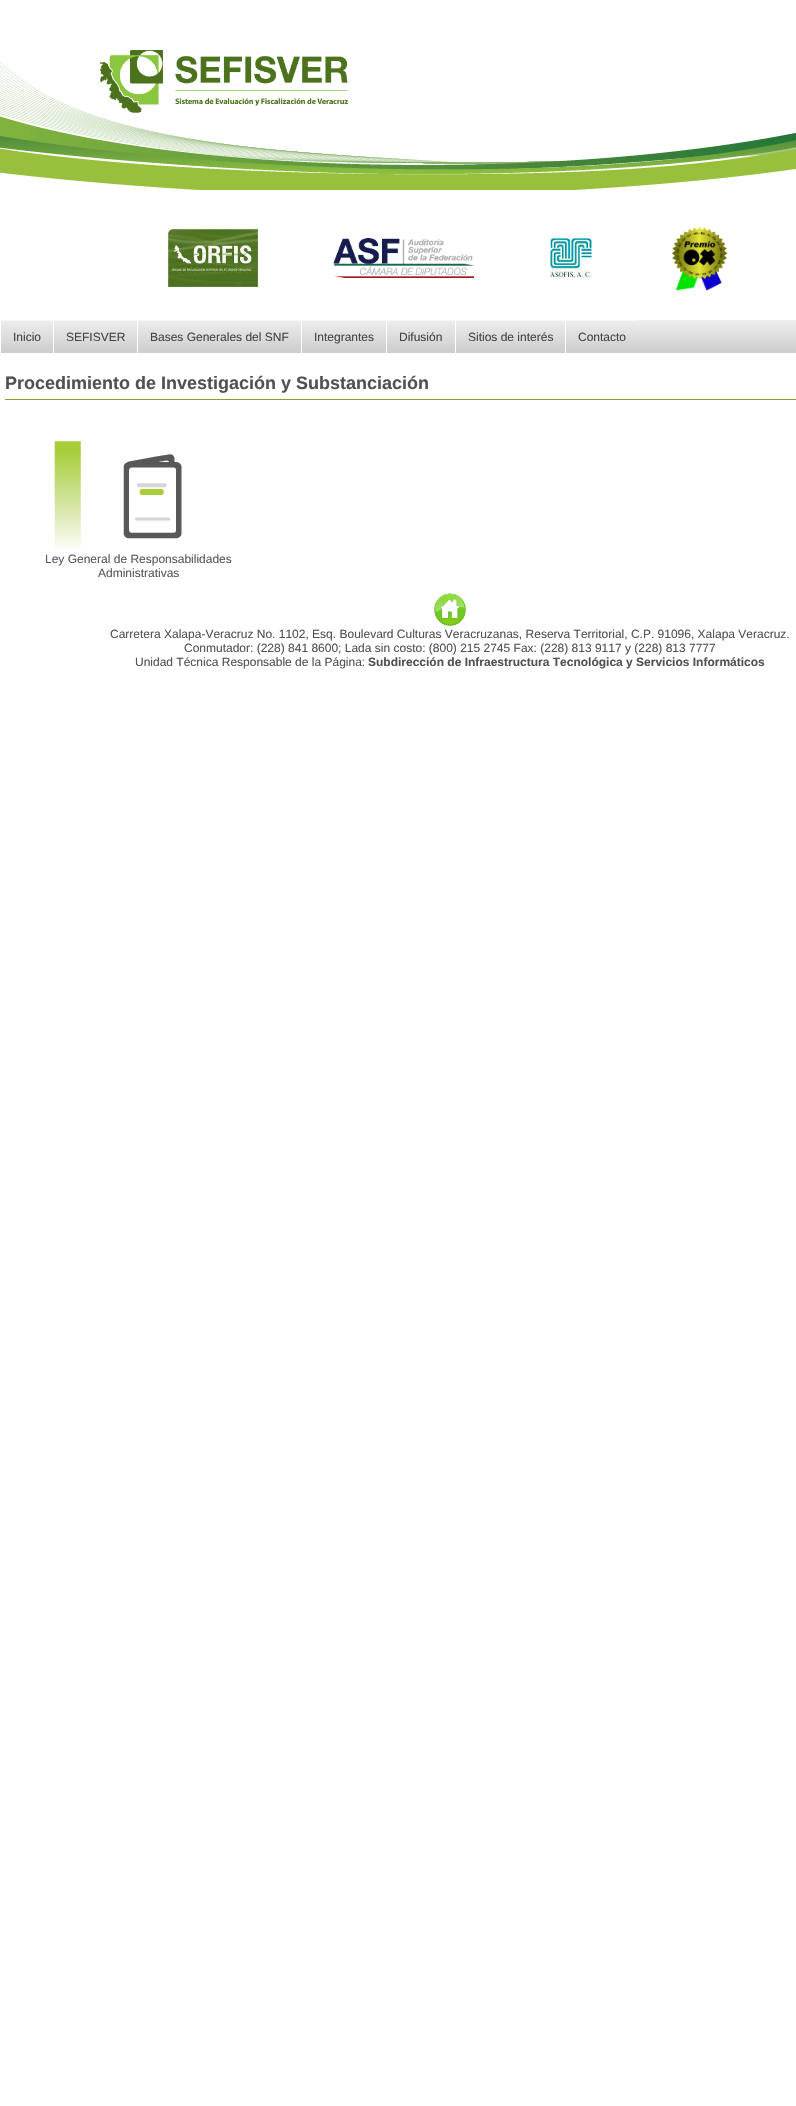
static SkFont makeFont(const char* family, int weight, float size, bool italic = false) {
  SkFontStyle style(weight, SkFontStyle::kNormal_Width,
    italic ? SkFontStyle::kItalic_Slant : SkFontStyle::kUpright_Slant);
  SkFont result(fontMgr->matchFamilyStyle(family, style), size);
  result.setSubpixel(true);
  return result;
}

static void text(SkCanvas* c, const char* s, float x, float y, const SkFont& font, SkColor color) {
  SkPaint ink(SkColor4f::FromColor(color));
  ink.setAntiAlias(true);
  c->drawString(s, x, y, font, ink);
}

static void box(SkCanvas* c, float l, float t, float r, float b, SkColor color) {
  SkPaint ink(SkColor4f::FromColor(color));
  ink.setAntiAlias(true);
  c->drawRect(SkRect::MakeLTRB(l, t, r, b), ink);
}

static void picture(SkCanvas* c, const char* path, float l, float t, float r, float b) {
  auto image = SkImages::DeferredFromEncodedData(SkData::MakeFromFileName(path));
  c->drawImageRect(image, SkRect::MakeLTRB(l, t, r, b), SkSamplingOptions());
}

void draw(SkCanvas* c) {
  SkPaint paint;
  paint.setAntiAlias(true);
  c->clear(0xffffffff);
  picture(c, "img_01.png", 0, 61, 796, 190);
  picture(c, "img_02.png", 100, 50, 348, 113);
  picture(c, "img_03.png", 168, 229, 258, 287);
  picture(c, "img_04.png", 333, 238, 474, 278);
  picture(c, "img_05.png", 550, 232, 592, 280);
  picture(c, "img_06.png", 671, 226, 728, 291);
  {
    const SkColor colors[] = {0xffeeeeee, 0xffcccccc};
    const float stops[] = {0, 1};
    const SkPoint ends[] = {{450, 320}, {450, 353}};
    paint.setShader(SkGradientShader::MakeLinear(ends, colors, stops, 2, SkTileMode::kClamp));
    paint.setAlpha(255);
  }
  c->drawRect(SkRect::MakeLTRB(0, 320, 796, 353), paint);
  paint.setShader(nullptr);
  paint.setColor(0xfff6f6f6);
  c->drawPath(SkPathBuilder().moveTo(0, 320).lineTo(53, 320).lineTo(53, 321).lineTo(1, 321).close().detach(), paint);
  paint.setColor(0xffffffff);
  c->drawPath(SkPathBuilder().moveTo(0, 353).lineTo(0, 320).lineTo(1, 321).lineTo(1, 353).close().detach(), paint);
  SkFont face1 = makeFont("Liberation Sans", 400, 12);
  text(c, "Inicio", 13, 341, face1, 0xff444444);
  paint.setColor(0xfff6f6f6);
  c->drawPath(SkPathBuilder().moveTo(53, 320).lineTo(137, 320).lineTo(137, 321).lineTo(54, 321).close().detach(), paint);
  paint.setColor(0xffffffff);
  c->drawPath(SkPathBuilder().moveTo(53, 353).lineTo(53, 320).lineTo(54, 321).lineTo(54, 353).close().detach(), paint);
  text(c, "SEFISVER", 66, 341, face1, 0xff444444);
  paint.setColor(0xfff6f6f6);
  c->drawPath(SkPathBuilder().moveTo(137, 320).lineTo(301, 320).lineTo(301, 321).lineTo(138, 321).close().detach(), paint);
  paint.setColor(0xffffffff);
  c->drawPath(SkPathBuilder().moveTo(137, 353).lineTo(137, 320).lineTo(138, 321).lineTo(138, 353).close().detach(), paint);
  text(c, "Bases Generales del SNF", 150, 341, face1, 0xff444444);
  paint.setColor(0xfff6f6f6);
  c->drawPath(SkPathBuilder().moveTo(301, 320).lineTo(386, 320).lineTo(386, 321).lineTo(302, 321).close().detach(), paint);
  paint.setColor(0xffffffff);
  c->drawPath(SkPathBuilder().moveTo(301, 353).lineTo(301, 320).lineTo(302, 321).lineTo(302, 353).close().detach(), paint);
  text(c, "Integrantes", 314, 341, face1, 0xff444444);
  paint.setColor(0xfff6f6f6);
  c->drawPath(SkPathBuilder().moveTo(386, 320).lineTo(455, 320).lineTo(455, 321).lineTo(387, 321).close().detach(), paint);
  paint.setColor(0xffffffff);
  c->drawPath(SkPathBuilder().moveTo(386, 353).lineTo(386, 320).lineTo(387, 321).lineTo(387, 353).close().detach(), paint);
  text(c, "Difusión", 399, 341, face1, 0xff444444);
  paint.setColor(0xfff6f6f6);
  c->drawPath(SkPathBuilder().moveTo(455, 320).lineTo(565, 320).lineTo(565, 321).lineTo(456, 321).close().detach(), paint);
  paint.setColor(0xffffffff);
  c->drawPath(SkPathBuilder().moveTo(455, 353).lineTo(455, 320).lineTo(456, 321).lineTo(456, 353).close().detach(), paint);
  text(c, "Sitios de interés", 468, 341, face1, 0xff444444);
  paint.setColor(0xfff6f6f6);
  c->drawPath(SkPathBuilder().moveTo(565, 320).lineTo(638, 320).lineTo(638, 321).lineTo(566, 321).close().detach(), paint);
  paint.setColor(0xffffffff);
  c->drawPath(SkPathBuilder().moveTo(565, 353).lineTo(565, 320).lineTo(566, 321).lineTo(566, 353).close().detach(), paint);
  text(c, "Contacto", 578, 341, face1, 0xff444444);
  box(c, 5, 399, 796, 400, 0xff80a136);
  SkFont face2 = makeFont("Liberation Sans", 700, 18);
  text(c, "Procedimiento de Investigación y Substanciación", 5, 389, face2, 0xff515151);
  picture(c, "img_07.png", 54, 441, 182, 550);
  text(c, "Ley General de Responsabilidades", 45, 563, face1, 0xff58585a);
  text(c, "Administrativas", 98, 577, face1, 0xff58585a);
  picture(c, "img_08.png", 434, 593, 466, 626);
  text(c, "Carretera Xalapa-Veracruz No. 1102, Esq. Boulevard Culturas Veracruzanas, Reserva Territorial, C.P. 91096, Xalapa Veracruz.", 110, 638, face1, 0xff515151);
  text(c, "Conmutador: (228) 841 8600; Lada sin costo: (800) 215 2745 Fax: (228) 813 9117 y (228) 813 7777", 184, 652, face1, 0xff515151);
  text(c, "Unidad Técnica Responsable de la Página:", 135, 666, face1, 0xff515151);
  SkFont face3 = makeFont("Liberation Sans", 700, 12);
  text(c, "Subdirección de Infraestructura Tecnológica y Servicios Informáticos", 368, 666, face3, 0xff515151);
}
